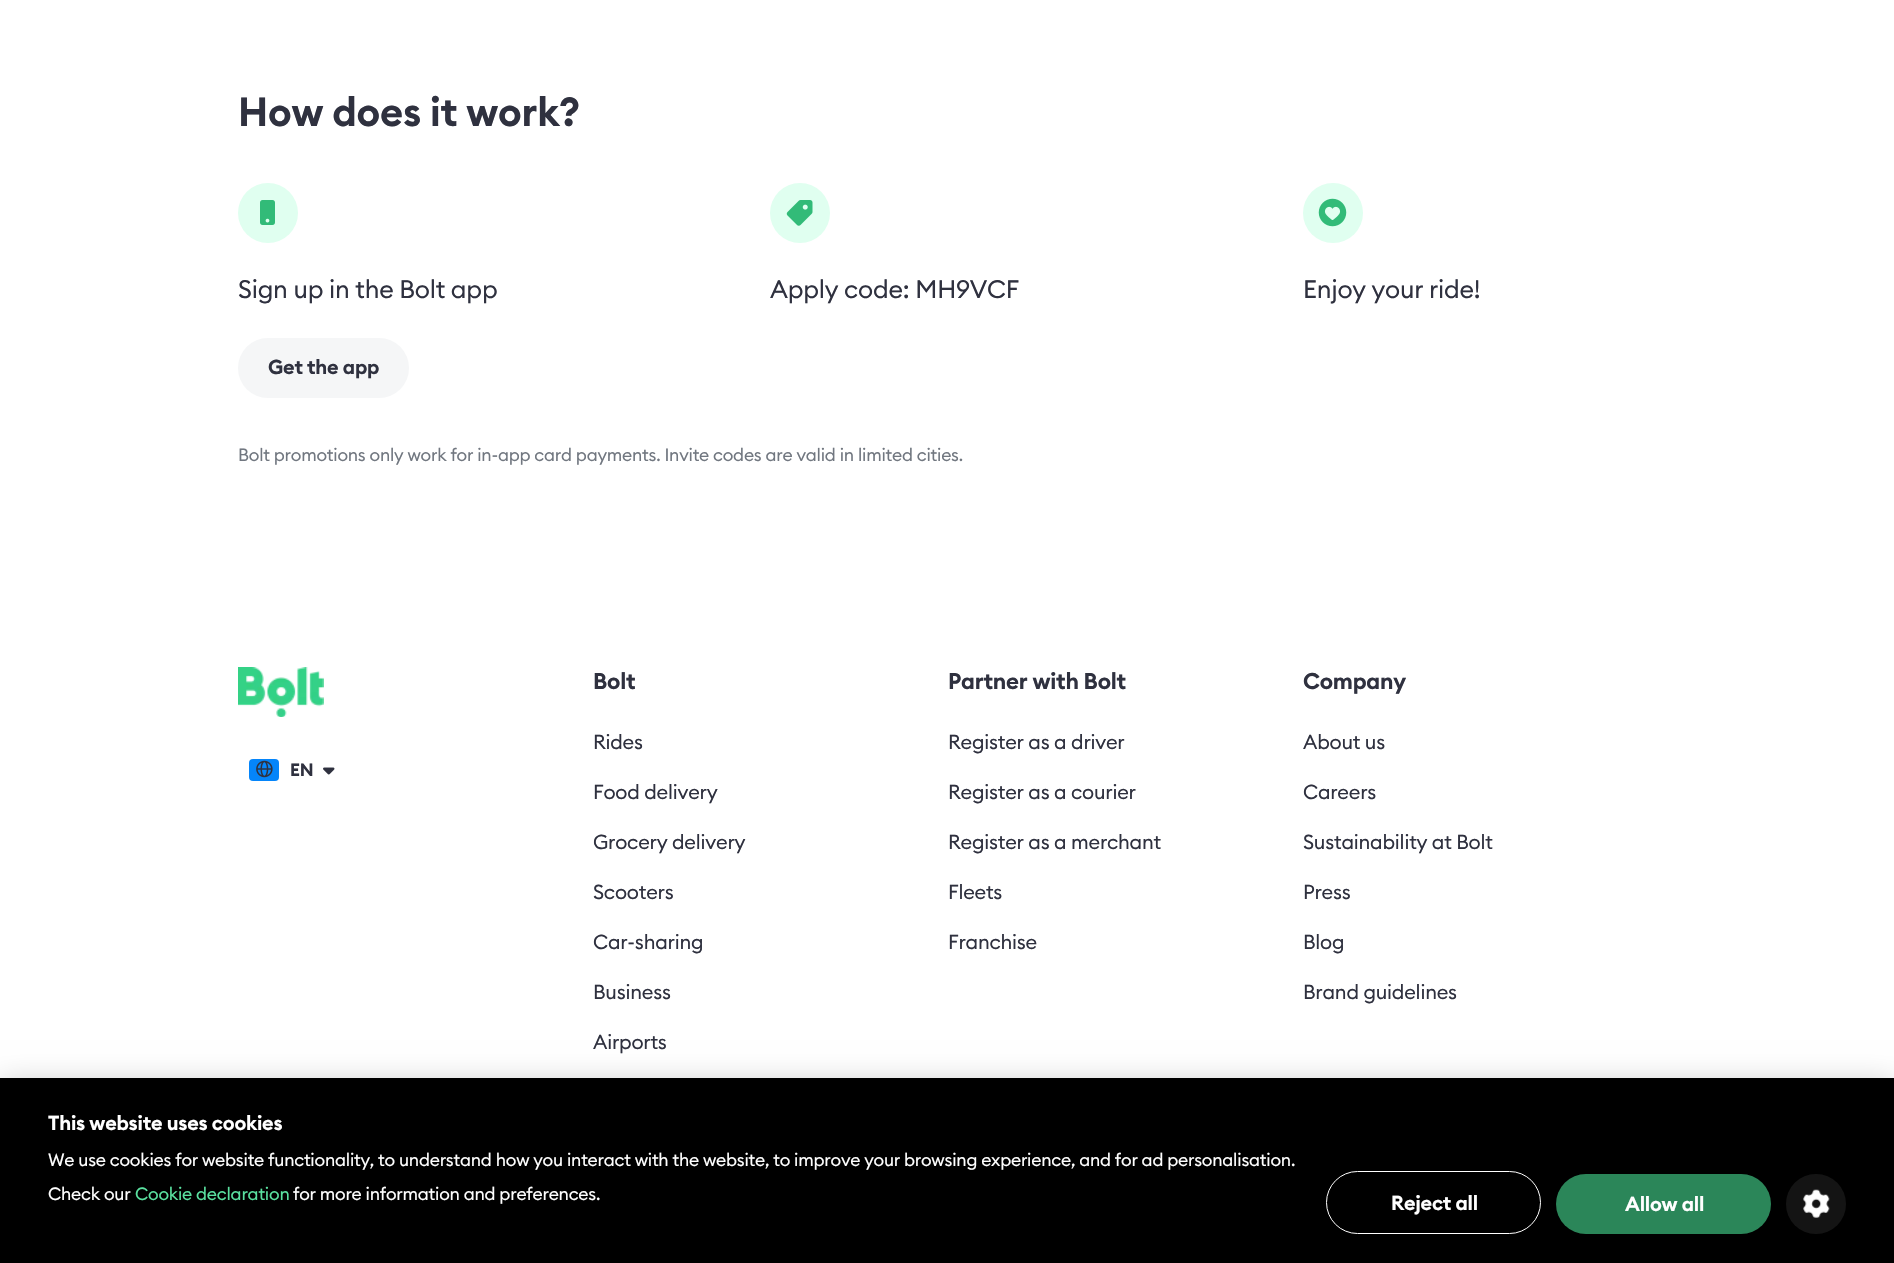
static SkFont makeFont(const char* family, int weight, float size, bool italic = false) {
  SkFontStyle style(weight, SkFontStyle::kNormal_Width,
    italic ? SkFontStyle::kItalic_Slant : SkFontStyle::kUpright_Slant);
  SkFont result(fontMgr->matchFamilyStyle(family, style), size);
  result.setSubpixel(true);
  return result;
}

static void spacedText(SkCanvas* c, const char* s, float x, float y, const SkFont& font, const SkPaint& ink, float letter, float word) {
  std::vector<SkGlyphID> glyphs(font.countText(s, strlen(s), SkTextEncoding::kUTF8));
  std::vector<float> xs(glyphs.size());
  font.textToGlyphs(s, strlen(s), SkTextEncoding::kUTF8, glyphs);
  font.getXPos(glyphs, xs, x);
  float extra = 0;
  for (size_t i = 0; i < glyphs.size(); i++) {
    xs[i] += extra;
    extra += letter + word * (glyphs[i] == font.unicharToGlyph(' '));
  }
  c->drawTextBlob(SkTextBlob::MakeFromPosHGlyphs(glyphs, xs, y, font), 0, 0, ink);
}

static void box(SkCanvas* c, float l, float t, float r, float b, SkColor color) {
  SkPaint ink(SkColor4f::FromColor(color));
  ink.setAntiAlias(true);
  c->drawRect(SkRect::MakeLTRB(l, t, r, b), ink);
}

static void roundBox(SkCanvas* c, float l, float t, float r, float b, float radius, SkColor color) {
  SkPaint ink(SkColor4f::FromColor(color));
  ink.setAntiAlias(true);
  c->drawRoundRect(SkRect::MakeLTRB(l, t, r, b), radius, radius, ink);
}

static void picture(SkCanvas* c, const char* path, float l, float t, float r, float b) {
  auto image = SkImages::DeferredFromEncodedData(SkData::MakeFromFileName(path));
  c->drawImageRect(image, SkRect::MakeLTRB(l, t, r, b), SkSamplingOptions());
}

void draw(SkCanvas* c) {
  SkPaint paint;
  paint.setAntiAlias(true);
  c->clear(0xffffffff);
  SkFont face1 = makeFont("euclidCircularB", 600, 40);
  paint.setColor(0xff2f313f);
  spacedText(c, "How does it work?", 238, 126, face1, paint, -0.22f, 0);
  paint.setColor(0xffe0fff0);
  c->drawCircle(268, 213, 30, paint);
  picture(c, "img_01.png", 260, 200, 275, 225);
  SkFont face2 = makeFont("euclidCircularB", 400, 25);
  paint.setColor(0xff2f313f);
  spacedText(c, "Sign up in the Bolt app", 238, 298, face2, paint, -0.22f, 0);
  roundBox(c, 238, 338, 409, 398, 30, 0xfff5f6f7);
  SkFont face3 = makeFont("euclidCircularB", 600, 20);
  spacedText(c, "Get the app", 268, 374, face3, paint, -0.22f, 0);
  paint.setColor(0xffe0fff0);
  c->drawCircle(800, 213, 30, paint);
  picture(c, "img_02.png", 786, 200, 813, 226);
  paint.setColor(0xff2f313f);
  spacedText(c, "Apply code: MH9VCF", 770, 298, face2, paint, -0.22f, 0);
  paint.setColor(0xffe0fff0);
  c->drawCircle(1333, 213, 30, paint);
  picture(c, "img_03.png", 1318, 198, 1347, 227);
  paint.setColor(0xff2f313f);
  spacedText(c, "Enjoy your ride!", 1303, 298, face2, paint, -0.22f, 0);
  SkFont face4 = makeFont("euclidCircularB", 400, 17.5f);
  paint.setColor(0xff717780);
  spacedText(c, "Bolt promotions only work for in-app card payments. Invite codes are valid in limited cities.", 238, 461, face4, paint, -0.22f, 0);
  picture(c, "img_04.png", 238, 667, 324, 717);
  roundBox(c, 249, 759, 279, 781, 4, 0xff0585fa);
  picture(c, "img_05.png", 256, 760, 273, 778);
  SkFont face5 = makeFont("euclidCircularB", 600, 17.5f);
  paint.setColor(0xff2f313f);
  spacedText(c, "EN", 290, 776, face5, paint, -0.22f, 0);
  picture(c, "img_06.png", 323, 767, 335, 775);
  SkFont face6 = makeFont("euclidCircularB", 600, 22.5f);
  spacedText(c, "Bolt", 593, 689, face6, paint, -0.22f, 0);
  SkFont face7 = makeFont("euclidCircularB", 400, 20);
  spacedText(c, "Rides", 593, 749, face7, paint, -0.22f, 0);
  spacedText(c, "Food delivery", 593, 799, face7, paint, -0.22f, 0);
  spacedText(c, "Grocery delivery", 593, 849, face7, paint, -0.22f, 0);
  spacedText(c, "Scooters", 593, 899, face7, paint, -0.22f, 0);
  spacedText(c, "Car-sharing", 593, 949, face7, paint, -0.22f, 0);
  spacedText(c, "Business", 593, 999, face7, paint, -0.22f, 0);
  spacedText(c, "Airports", 593, 1049, face7, paint, -0.22f, 0);
  spacedText(c, "Partner with Bolt", 948, 689, face6, paint, -0.22f, 0);
  spacedText(c, "Register as a driver", 948, 749, face7, paint, -0.22f, 0);
  spacedText(c, "Register as a courier", 948, 799, face7, paint, -0.22f, 0);
  spacedText(c, "Register as a merchant", 948, 849, face7, paint, -0.22f, 0);
  spacedText(c, "Fleets", 948, 899, face7, paint, -0.22f, 0);
  spacedText(c, "Franchise", 948, 949, face7, paint, -0.22f, 0);
  spacedText(c, "Company", 1303, 689, face6, paint, -0.22f, 0);
  spacedText(c, "About us", 1303, 749, face7, paint, -0.22f, 0);
  spacedText(c, "Careers", 1303, 799, face7, paint, -0.22f, 0);
  spacedText(c, "Sustainability at Bolt", 1303, 849, face7, paint, -0.22f, 0);
  spacedText(c, "Press", 1303, 899, face7, paint, -0.22f, 0);
  spacedText(c, "Blog", 1303, 949, face7, paint, -0.22f, 0);
  spacedText(c, "Brand guidelines", 1303, 999, face7, paint, -0.22f, 0);
  paint.setColor(0x3d000000);
  paint.setMaskFilter(SkMaskFilter::MakeBlur(kNormal_SkBlurStyle, 15));
  c->drawRect(SkRect::MakeLTRB(0, 1085, 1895, 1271), paint);
  paint.setMaskFilter(nullptr);
  box(c, 0, 1078, 1894, 1263, 0xff000000);
  paint.setColor(0xffffffff);
  spacedText(c, "This website uses cookies", 48, 1130, face3, paint, -0.22f, 0);
  spacedText(c, "We use cookies for website functionality, to understand how you interact with the website, to improve your browsing experience, and for ad personalisation.", 48, 1166, face4, paint, -0.22f, 0);
  spacedText(c, "Check our", 48, 1200, face4, paint, -0.22f, 0);
  paint.setColor(0xff5ae1a0);
  spacedText(c, "Cookie declaration", 135, 1200, face4, paint, -0.22f, 0);
  paint.setColor(0xffffffff);
  spacedText(c, "for more information and preferences.", 293, 1200, face4, paint, -0.22f, 0);
  paint.setStyle(SkPaint::kStroke_Style);
  paint.setStrokeWidth(1);
  c->drawRoundRect(SkRect::MakeLTRB(1326.5f, 1171.5f, 1540.5f, 1233.5f), 31, 31, paint);
  paint.setStyle(SkPaint::kFill_Style);
  spacedText(c, "Reject all", 1391, 1210, face3, paint, -0.22f, 0);
  roundBox(c, 1556, 1174, 1771, 1234, 30, 0xff2b8659);
  spacedText(c, "Allow all", 1625, 1211, face3, paint, -0.22f, 0);
  paint.setColor(0xff141414);
  c->drawCircle(1816, 1204, 30, paint);
  picture(c, "img_07.png", 1803, 1189, 1830, 1218);
}
